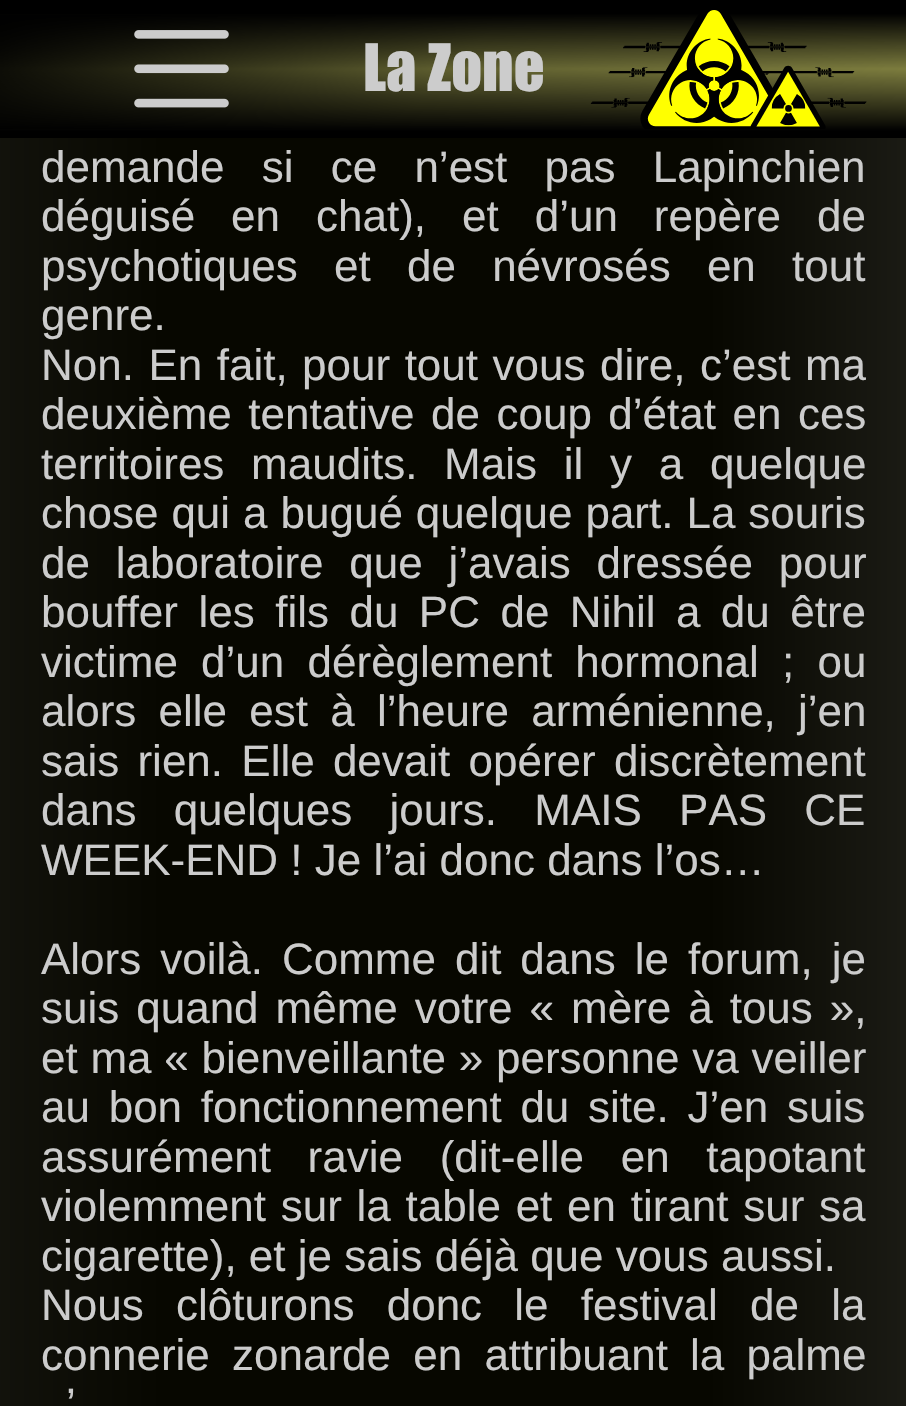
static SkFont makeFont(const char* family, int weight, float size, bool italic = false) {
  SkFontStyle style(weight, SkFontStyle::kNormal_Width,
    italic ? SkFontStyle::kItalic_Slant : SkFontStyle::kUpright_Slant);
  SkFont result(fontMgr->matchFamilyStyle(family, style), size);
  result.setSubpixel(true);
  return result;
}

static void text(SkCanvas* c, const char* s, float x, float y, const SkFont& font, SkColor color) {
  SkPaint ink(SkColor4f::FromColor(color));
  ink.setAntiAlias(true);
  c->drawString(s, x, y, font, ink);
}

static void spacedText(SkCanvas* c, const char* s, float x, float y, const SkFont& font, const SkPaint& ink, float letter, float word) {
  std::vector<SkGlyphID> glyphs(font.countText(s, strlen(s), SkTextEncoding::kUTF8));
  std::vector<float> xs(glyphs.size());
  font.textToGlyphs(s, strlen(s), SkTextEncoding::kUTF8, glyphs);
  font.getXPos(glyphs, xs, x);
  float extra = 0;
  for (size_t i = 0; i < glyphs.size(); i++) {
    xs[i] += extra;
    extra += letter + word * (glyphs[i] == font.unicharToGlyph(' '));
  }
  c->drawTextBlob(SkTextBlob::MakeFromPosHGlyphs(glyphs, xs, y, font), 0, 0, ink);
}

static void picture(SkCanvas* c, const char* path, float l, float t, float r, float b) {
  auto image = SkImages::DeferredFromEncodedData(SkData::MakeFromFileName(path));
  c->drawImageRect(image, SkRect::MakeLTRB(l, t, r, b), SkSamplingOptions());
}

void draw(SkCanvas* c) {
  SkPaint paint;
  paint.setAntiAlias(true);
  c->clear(0xffffffff);
  {
    const SkColor colors[] = {0xffcccccc, 0xff070700, 0xff070700, 0xffcccccc};
    const float stops[] = {0, 0.53f, 0.63f, 1};
    const SkPoint ends[] = {{-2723, 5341}, {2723, 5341}};
    paint.setShader(SkGradientShader::MakeLinear(ends, colors, stops, 4, SkTileMode::kClamp));
    paint.setAlpha(255);
  }
  c->drawRect(SkRect::MakeLTRB(0, 138, 906, 1406), paint);
  {
    const SkColor colors[] = {0xff000000, 0xff000000, 0xff808040, 0xff000000, 0xff000000};
    const float stops[] = {0, 0.1f, 0.5f, 0.95f, 1};
    const SkPoint ends[] = {{454, 0}, {454, 138}};
    paint.setShader(SkGradientShader::MakeLinear(ends, colors, stops, 5, SkTileMode::kClamp));
    paint.setAlpha(255);
  }
  c->drawRect(SkRect::MakeLTRB(0, 0, 906, 138), paint);
  {
    const SkColor colors[] = {0xff000000, 0x40000000, 0x00000000};
    const float stops[] = {0, 0.5f, 1};
    const SkPoint ends[] = {{192, -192}, {715, 330}};
    paint.setShader(SkGradientShader::MakeLinear(ends, colors, stops, 3, SkTileMode::kClamp));
    paint.setAlpha(255);
  }
  c->drawRect(SkRect::MakeLTRB(0, 15, 906, 129), paint);
  picture(c, "img_01.png", 134, 30, 229, 108);
  SkFont face1 = makeFont("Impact", 400, 60.5f);
  text(c, "La Zone", 363, 91, face1, 0xffcccccc);
  picture(c, "img_02.png", 590, 10, 867, 129);
  SkFont face2 = makeFont("Liberation Sans", 400, 44);
  paint.setShader(nullptr);
  paint.setColor(0xffcccccc);
  spacedText(c, "demande si ce n’est pas Lapinchien", 41, 182, face2, paint, 0, 25);
  spacedText(c, "déguisé en chat), et d’un repère de", 41, 231, face2, paint, 0, 23.75f);
  spacedText(c, "psychotiques et de névrosés en tout", 41, 281, face2, paint, 0, 24);
  text(c, "genre.", 41, 330, face2, 0xffcccccc);
  spacedText(c, "Non. En fait, pour tout vous dire, c’est ma", 41, 380, face2, paint, 0, 2.25f);
  spacedText(c, "deuxième tentative de coup d’état en ces", 41, 429, face2, paint, 0, 4.25f);
  spacedText(c, "territoires maudits. Mais il y a quelque", 41, 479, face2, paint, 0, 14.5f);
  spacedText(c, "chose qui a bugué quelque part. La souris", 41, 528, face2, paint, 0, 0.75f);
  spacedText(c, "de laboratoire que j’avais dressée pour", 41, 578, face2, paint, 0, 13.5f);
  spacedText(c, "bouffer les fils du PC de Nihil a du être", 41, 627, face2, paint, 0, 8.25f);
  spacedText(c, "victime d’un dérèglement hormonal ; ou", 41, 677, face2, paint, 0, 11);
  spacedText(c, "alors elle est à l’heure arménienne, j’en", 41, 726, face2, paint, 0, 10);
  spacedText(c, "sais rien. Elle devait opérer discrètement", 41, 776, face2, paint, 0, 6);
  spacedText(c, "dans quelques jours. MAIS PAS CE", 41, 825, face2, paint, 0, 25);
  text(c, "WEEK-END ! Je l’ai donc dans l’os…", 41, 875, face2, 0xffcccccc);
  spacedText(c, "Alors voilà. Comme dit dans le forum, je", 41, 974, face2, paint, 0, 6.75f);
  spacedText(c, "suis quand même votre « mère à tous »,", 41, 1023, face2, paint, 0, 4.75f);
  spacedText(c, "et ma « bienveillante » personne va veiller", 41, 1073, face2, paint, 0, 0.5f);
  spacedText(c, "au bon fonctionnement du site. J’en suis", 41, 1122, face2, paint, 0, 6.5f);
  spacedText(c, "assurément ravie (dit-elle en tapotant", 41, 1172, face2, paint, 0, 24.5f);
  spacedText(c, "violemment sur la table et en tirant sur sa", 41, 1221, face2, paint, 0, 2.5f);
  text(c, "cigarette), et je sais déjà que vous aussi.", 41, 1271, face2, 0xffcccccc);
  spacedText(c, "Nous clôturons donc le festival de la", 41, 1320, face2, paint, 0, 20);
  spacedText(c, "connerie zonarde en attribuant la palme", 41, 1370, face2, paint, 0, 10);
  spacedText(c, "’", 66, 1419, face2, paint, 0, 25);
}
